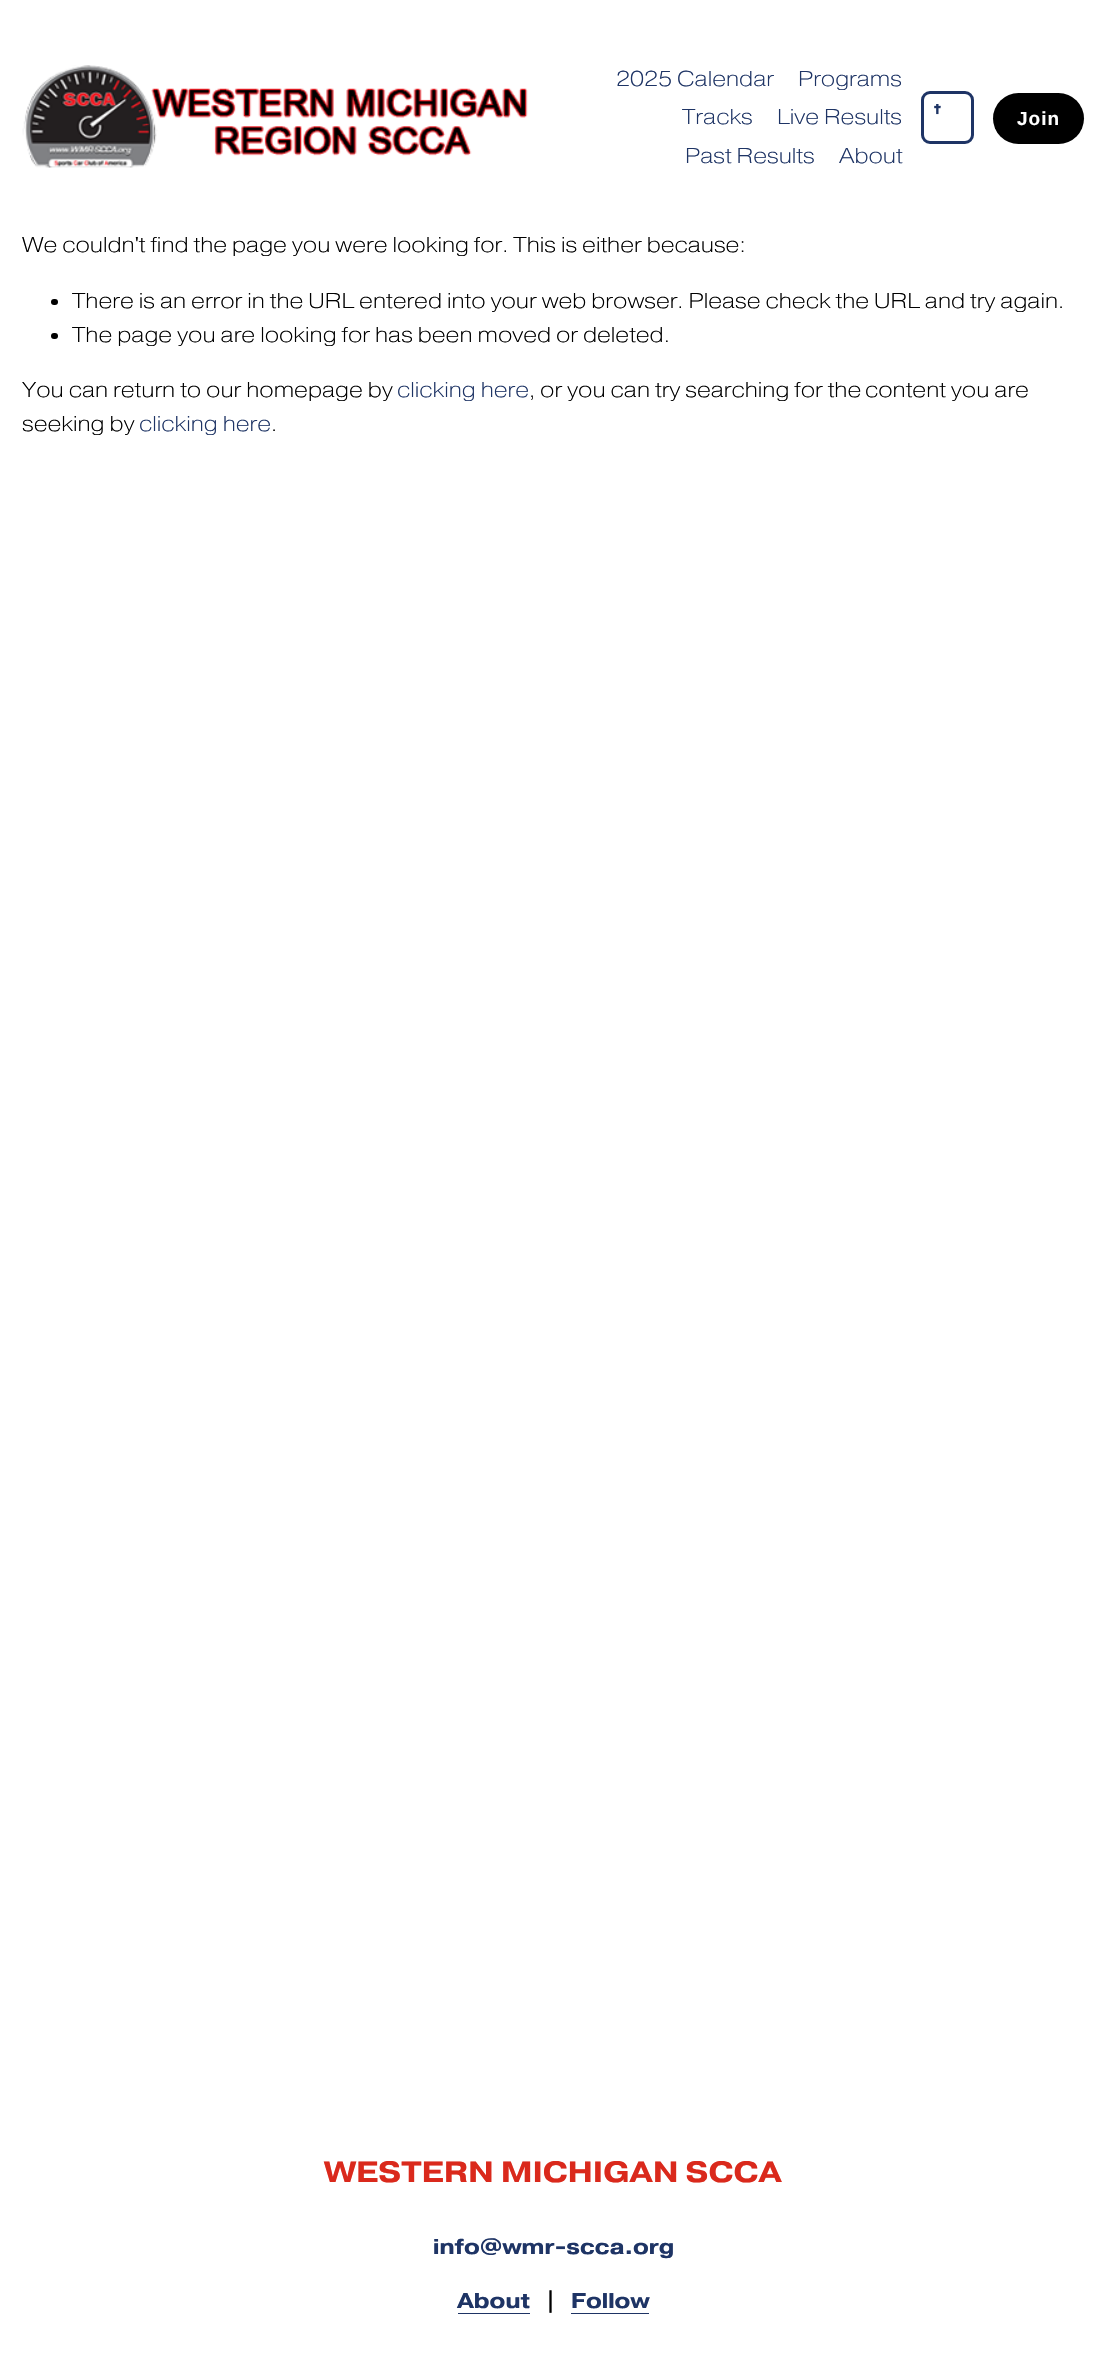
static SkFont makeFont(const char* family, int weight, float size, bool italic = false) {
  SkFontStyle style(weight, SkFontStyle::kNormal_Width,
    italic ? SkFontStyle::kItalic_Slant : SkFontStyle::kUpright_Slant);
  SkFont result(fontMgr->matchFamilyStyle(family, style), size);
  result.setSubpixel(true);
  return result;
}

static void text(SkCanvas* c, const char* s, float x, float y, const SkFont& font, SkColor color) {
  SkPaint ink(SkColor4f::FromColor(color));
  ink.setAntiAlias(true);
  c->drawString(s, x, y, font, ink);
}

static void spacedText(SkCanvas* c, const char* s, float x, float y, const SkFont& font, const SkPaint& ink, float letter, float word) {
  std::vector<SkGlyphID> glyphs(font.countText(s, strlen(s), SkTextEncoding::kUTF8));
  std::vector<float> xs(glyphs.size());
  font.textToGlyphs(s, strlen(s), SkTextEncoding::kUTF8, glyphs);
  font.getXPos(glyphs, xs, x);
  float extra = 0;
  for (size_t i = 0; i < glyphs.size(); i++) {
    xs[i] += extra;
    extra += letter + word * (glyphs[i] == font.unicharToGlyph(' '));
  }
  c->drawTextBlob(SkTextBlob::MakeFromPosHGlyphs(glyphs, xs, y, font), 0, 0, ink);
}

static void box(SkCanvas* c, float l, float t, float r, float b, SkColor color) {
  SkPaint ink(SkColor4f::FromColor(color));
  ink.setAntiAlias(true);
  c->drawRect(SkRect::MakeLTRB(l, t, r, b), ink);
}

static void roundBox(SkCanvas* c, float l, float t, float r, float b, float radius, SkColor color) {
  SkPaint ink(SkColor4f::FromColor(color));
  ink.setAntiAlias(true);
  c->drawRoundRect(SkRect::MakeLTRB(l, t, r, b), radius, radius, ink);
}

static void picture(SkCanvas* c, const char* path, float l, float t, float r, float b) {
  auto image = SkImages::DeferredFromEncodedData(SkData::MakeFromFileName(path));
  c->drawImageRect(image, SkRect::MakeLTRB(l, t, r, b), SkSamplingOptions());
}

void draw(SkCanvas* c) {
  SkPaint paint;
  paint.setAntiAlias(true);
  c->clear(0xffffffff);
  picture(c, "img_01.png", 22, 65, 528, 168);
  SkFont face1 = makeFont("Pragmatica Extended", 200, 21.35f);
  text(c, "2025 Calendar", 616, 86, face1, 0xff1e3465);
  text(c, "Programs", 798, 86, face1, 0xff1e3465);
  text(c, "Tracks", 682, 124, face1, 0xff1e3465);
  text(c, "Live Results", 777, 124, face1, 0xff1e3465);
  text(c, "Past Results", 685, 163, face1, 0xff1e3465);
  text(c, "About", 839, 163, face1, 0xff1e3465);
  paint.setStyle(SkPaint::kStroke_Style);
  paint.setStrokeWidth(3);
  paint.setColor(0xff1e3465);
  c->drawRoundRect(SkRect::MakeLTRB(922.5f, 92.5f, 972.5f, 142.5f), 7.5f, 7.5f, paint);
  picture(c, "img_02.png", 934, 104, 941, 115);
  roundBox(c, 993, 93, 1084, 144, 25.5f, 0xff000000);
  SkFont face2 = makeFont("Liberation Sans", 700, 19);
  paint.setStyle(SkPaint::kFill_Style);
  paint.setColor(0xffffffff);
  spacedText(c, "Join", 1017, 125, face2, paint, 1, 0);
  text(c, "We couldn't find the page you were looking for. This is either because:", 22, 252, face1, 0xff000000);
  roundBox(c, 51, 299, 58, 305, 3, 0xff000000);
  text(c, "There is an error in the URL entered into your web browser. Please check the URL and try again.", 72, 308, face1, 0xff000000);
  roundBox(c, 51, 333, 58, 339, 3, 0xff000000);
  text(c, "The page you are looking for has been moved or deleted.", 72, 342, face1, 0xff000000);
  text(c, "You can return to our homepage by", 22, 397, face1, 0xff000000);
  text(c, "clicking here", 397, 397, face1, 0xff1e3465);
  text(c, ", or you can try searching for the", 529, 397, face1, 0xff000000);
  text(c, "content you are", 865, 397, face1, 0xff000000);
  text(c, "seeking by", 22, 431, face1, 0xff000000);
  text(c, "clicking here", 139, 431, face1, 0xff1e3465);
  text(c, ".", 271, 431, face1, 0xff000000);
  SkFont face3 = makeFont("Pragmatica Extended", 700, 29.25f);
  paint.setColor(0xffda291c);
  spacedText(c, "WESTERN MICHIGAN SCCA", 324, 2182, face3, paint, 0.25f, 0);
  SkFont face4 = makeFont("Pragmatica Extended", 700, 21.35f);
  text(c, "info@wmr-scca.org", 433, 2254, face4, 0xff1e3465);
  text(c, "About", 457, 2308, face4, 0xff1e3465);
  box(c, 458, 2313, 530, 2314, 0xff1e3465);
  text(c, "|", 545, 2308, face4, 0xff000000);
  text(c, "Follow", 571, 2308, face4, 0xff1e3465);
  box(c, 571, 2313, 649, 2314, 0xff1e3465);
}
